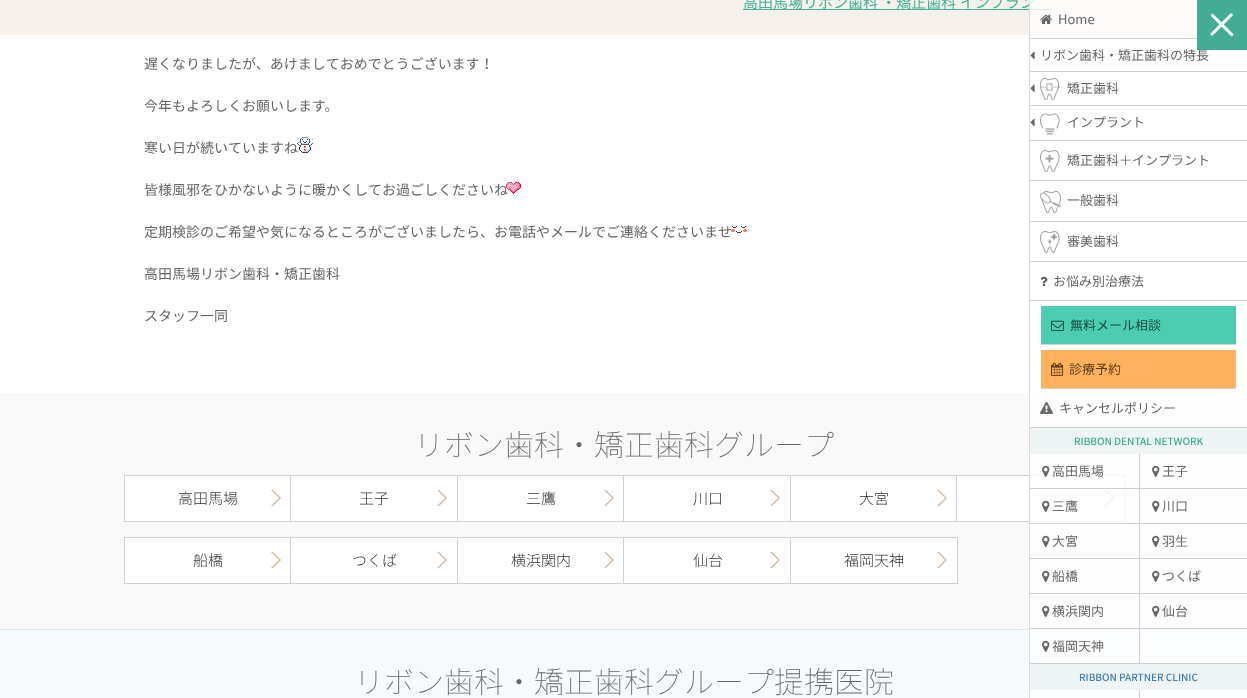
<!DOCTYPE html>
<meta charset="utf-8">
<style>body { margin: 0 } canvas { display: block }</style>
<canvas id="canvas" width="1247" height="698"></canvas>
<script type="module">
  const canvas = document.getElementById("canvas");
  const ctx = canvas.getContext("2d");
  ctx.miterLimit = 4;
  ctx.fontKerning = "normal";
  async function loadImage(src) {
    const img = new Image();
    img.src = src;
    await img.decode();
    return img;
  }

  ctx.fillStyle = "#ffffff";
  ctx.fillRect(0, 0, 1247, 698);
  ctx.fillStyle = "#f6f1ec";
  ctx.fillRect(0, 0, 1197, 35);
  ctx.fillStyle = "#41b294";
  ctx.fillRect(743, 9, 306, 1);
  ctx.font = "15px Noto Sans JP";
  ctx.fillText("高田馬場リボン歯科 ・矯正歯科 インプラン", 743, 8);
  ctx.font = "14px Noto Sans JP";
  ctx.fillStyle = "#666666";
  ctx.fillText("遅くなりましたが、あけましておめでとうございます！", 144, 69);
  ctx.fillText("今年もよろしくお願いします。", 144, 111);
  ctx.fillText("寒い日が続いていますね", 144, 153);
  ctx.drawImage(await loadImage("img1.png"), 297, 137, 16, 16);
  ctx.fillText("皆様風邪をひかないように暖かくしてお過ごしくださいね", 144, 195);
  ctx.drawImage(await loadImage("img2.png"), 506, 182, 15, 12);
  ctx.fillText("定期検診のご希望や気になるところがございましたら、お電話やメールでご連絡くださいませ", 144, 237);
  ctx.drawImage(await loadImage("img3.png"), 731, 226, 16, 7);
  ctx.fillText("高田馬場リボン歯科・矯正歯科", 144, 279);
  ctx.fillText("スタッフ一同", 144, 321);
  ctx.fillStyle = "#f9f9f9";
  ctx.fillRect(0, 393, 1247, 236);
  ctx.font = "100 30px Noto Sans JP";
  ctx.fillStyle = "#666666";
  ctx.fillText("リボン歯科・矯正歯科グループ", 414, 456);
  ctx.fillStyle = "#ffffff";
  ctx.fillRect(125, 476, 165, 45);
  ctx.drawImage(await loadImage("img4.png"), 271, 490, 10, 16);
  ctx.strokeStyle = "#d2d2d2";
  ctx.strokeRect(124.5, 475.5, 167, 46);
  ctx.font = "300 15px Noto Sans JP";
  ctx.fillStyle = "#333333";
  ctx.fillText("高田馬場", 178, 504);
  ctx.fillStyle = "#ffffff";
  ctx.fillRect(291, 476, 166, 45);
  ctx.drawImage(await loadImage("img5.png"), 437, 490, 10, 16);
  ctx.strokeRect(290.5, 475.5, 168, 46);
  ctx.fillStyle = "#333333";
  ctx.fillText("王子", 359, 504);
  ctx.fillStyle = "#ffffff";
  ctx.fillRect(458, 476, 165, 45);
  ctx.drawImage(await loadImage("img4.png"), 604, 490, 10, 16);
  ctx.strokeRect(457.5, 475.5, 167, 46);
  ctx.fillStyle = "#333333";
  ctx.fillText("三鷹", 526, 504);
  ctx.fillStyle = "#ffffff";
  ctx.fillRect(624, 476, 166, 45);
  ctx.drawImage(await loadImage("img5.png"), 770, 490, 10, 16);
  ctx.strokeRect(623.5, 475.5, 168, 46);
  ctx.fillStyle = "#333333";
  ctx.fillText("川口", 693, 504);
  ctx.fillStyle = "#ffffff";
  ctx.fillRect(791, 476, 165, 45);
  ctx.drawImage(await loadImage("img4.png"), 937, 490, 10, 16);
  ctx.strokeRect(790.5, 475.5, 167, 46);
  ctx.fillStyle = "#333333";
  ctx.fillText("大宮", 859, 504);
  ctx.fillStyle = "#ffffff";
  ctx.fillRect(957, 476, 167, 45);
  ctx.drawImage(await loadImage("img4.png"), 1104, 490, 10, 16);
  ctx.strokeRect(956.5, 475.5, 168, 46);
  ctx.fillRect(125, 538, 165, 45);
  ctx.drawImage(await loadImage("img4.png"), 271, 552, 10, 16);
  ctx.strokeRect(124.5, 537.5, 167, 46);
  ctx.fillStyle = "#333333";
  ctx.fillText("船橋", 193, 566);
  ctx.fillStyle = "#ffffff";
  ctx.fillRect(291, 538, 166, 45);
  ctx.drawImage(await loadImage("img5.png"), 437, 552, 10, 16);
  ctx.strokeRect(290.5, 537.5, 168, 46);
  ctx.fillStyle = "#333333";
  ctx.fillText("つくば", 352, 566);
  ctx.fillStyle = "#ffffff";
  ctx.fillRect(458, 538, 165, 45);
  ctx.drawImage(await loadImage("img4.png"), 604, 552, 10, 16);
  ctx.strokeRect(457.5, 537.5, 167, 46);
  ctx.fillStyle = "#333333";
  ctx.fillText("横浜関内", 511, 566);
  ctx.fillStyle = "#ffffff";
  ctx.fillRect(624, 538, 166, 45);
  ctx.drawImage(await loadImage("img5.png"), 770, 552, 10, 16);
  ctx.strokeRect(623.5, 537.5, 168, 46);
  ctx.fillStyle = "#333333";
  ctx.fillText("仙台", 693, 566);
  ctx.fillStyle = "#ffffff";
  ctx.fillRect(791, 538, 166, 45);
  ctx.drawImage(await loadImage("img4.png"), 937, 552, 10, 16);
  ctx.strokeRect(790.5, 537.5, 167, 46);
  ctx.fillStyle = "#333333";
  ctx.fillText("福岡天神", 844, 566);
  ctx.fillStyle = "#f6fafd";
  ctx.fillRect(0, 630, 1247, 68);
  ctx.fillStyle = "#deeaf2";
  ctx.fillRect(0, 629, 1247, 1);
  ctx.font = "100 30px Noto Sans JP";
  ctx.fillStyle = "#666666";
  ctx.fillText("リボン歯科・矯正歯科グループ提携医院", 354, 693);
  ctx.fillStyle = "rgba(255, 255, 255, 0.8)";
  ctx.fillRect(1030, 0, 217, 698);
  ctx.fillStyle = "#dddddd";
  ctx.fillRect(1029, 0, 1, 698);
  ctx.fillStyle = "#d2d2d2";
  ctx.fillRect(1030, 38, 167, 1);
  ctx.drawImage(await loadImage("img6.png"), 1040, 14, 12, 10);
  ctx.font = "13px Noto Sans JP";
  ctx.fillStyle = "#666666";
  ctx.fillText("Home", 1058, 24);
  ctx.fillStyle = "#d2d2d2";
  ctx.fillRect(1030, 71, 217, 1);
  ctx.drawImage(await loadImage("img7.png"), 1030, 51, 5, 8);
  ctx.fillStyle = "#666666";
  ctx.fillText("リボン歯科・矯正歯科の特長", 1040, 60);
  ctx.fillStyle = "#d2d2d2";
  ctx.fillRect(1030, 105, 217, 1);
  ctx.drawImage(await loadImage("img7.png"), 1030, 84, 5, 8);
  ctx.drawImage(await loadImage("img8.png"), 1040, 78, 21, 22);
  ctx.fillStyle = "#666666";
  ctx.fillText("矯正歯科", 1067, 93);
  ctx.fillStyle = "#d2d2d2";
  ctx.fillRect(1030, 140, 217, 1);
  ctx.drawImage(await loadImage("img7.png"), 1030, 118, 5, 8);
  ctx.drawImage(await loadImage("img9.png"), 1040, 113, 20, 22);
  ctx.fillStyle = "#666666";
  ctx.fillText("インプラント", 1067, 127);
  ctx.fillStyle = "#d2d2d2";
  ctx.fillRect(1030, 180, 217, 1);
  ctx.drawImage(await loadImage("img10.png"), 1040, 150, 20, 22);
  ctx.fillStyle = "#666666";
  ctx.fillText("矯正歯科＋インプラント", 1067, 165);
  ctx.fillStyle = "#d2d2d2";
  ctx.fillRect(1030, 221, 217, 1);
  ctx.drawImage(await loadImage("img11.png"), 1040, 191, 21, 22);
  ctx.fillStyle = "#666666";
  ctx.fillText("一般歯科", 1067, 205);
  ctx.fillStyle = "#d2d2d2";
  ctx.fillRect(1030, 261, 217, 1);
  ctx.drawImage(await loadImage("img12.png"), 1040, 231, 20, 22);
  ctx.fillStyle = "#666666";
  ctx.fillText("審美歯科", 1067, 246);
  ctx.fillStyle = "#d2d2d2";
  ctx.fillRect(1030, 300, 217, 1);
  ctx.drawImage(await loadImage("img13.png"), 1040, 276, 8, 10);
  ctx.fillStyle = "#666666";
  ctx.fillText("お悩み別治療法", 1053, 286);
  ctx.fillStyle = "#4ccdb1";
  ctx.fillRect(1041, 306, 195, 38);
  ctx.fillStyle = "#d2d2d2";
  ctx.fillRect(1041, 344, 195, 1);
  ctx.drawImage(await loadImage("img14.png"), 1051, 320, 13, 11);
  ctx.fillStyle = "#1a4b40";
  ctx.fillText("無料メール相談", 1070, 330);
  ctx.fillStyle = "#ffb15e";
  ctx.fillRect(1041, 350, 195, 38);
  ctx.fillStyle = "#d2d2d2";
  ctx.fillRect(1041, 388, 195, 1);
  ctx.drawImage(await loadImage("img15.png"), 1051, 362, 13, 14);
  ctx.fillStyle = "#5c3b18";
  ctx.fillText("診療予約", 1069, 374);
  ctx.fillStyle = "#d2d2d2";
  ctx.fillRect(1030, 427, 217, 1);
  ctx.drawImage(await loadImage("img16.png"), 1040, 401, 13, 13);
  ctx.fillStyle = "#666666";
  ctx.fillText("キャンセルポリシー", 1059, 413);
  ctx.fillStyle = "#eff5f4";
  ctx.fillRect(1030, 428, 217, 26);
  ctx.font = "500 10px Noto Sans JP";
  ctx.fillStyle = "#43ac95";
  ctx.fillText("RIBBON DENTAL NETWORK", 1074, 445);
  ctx.fillStyle = "#cfcfcf";
  ctx.fillRect(1030, 488, 217, 1);
  ctx.drawImage(await loadImage("img17.png"), 1042, 465, 8, 12);
  ctx.font = "13px Noto Sans JP";
  ctx.fillStyle = "#666666";
  ctx.fillText("高田馬場", 1052, 476);
  ctx.fillStyle = "#cfcfcf";
  ctx.fillRect(1139, 454, 1, 35);
  ctx.drawImage(await loadImage("img18.png"), 1152, 465, 8, 12);
  ctx.fillStyle = "#666666";
  ctx.fillText("王子", 1162, 476);
  ctx.fillStyle = "#cfcfcf";
  ctx.fillRect(1030, 523, 217, 1);
  ctx.drawImage(await loadImage("img19.png"), 1042, 500, 8, 12);
  ctx.fillStyle = "#666666";
  ctx.fillText("三鷹", 1052, 511);
  ctx.fillStyle = "#cfcfcf";
  ctx.fillRect(1139, 489, 1, 35);
  ctx.drawImage(await loadImage("img18.png"), 1152, 500, 8, 12);
  ctx.fillStyle = "#666666";
  ctx.fillText("川口", 1162, 511);
  ctx.fillStyle = "#cfcfcf";
  ctx.fillRect(1030, 558, 217, 1);
  ctx.drawImage(await loadImage("img18.png"), 1042, 535, 8, 12);
  ctx.fillStyle = "#666666";
  ctx.fillText("大宮", 1052, 546);
  ctx.fillStyle = "#cfcfcf";
  ctx.fillRect(1139, 524, 1, 35);
  ctx.drawImage(await loadImage("img18.png"), 1152, 535, 8, 12);
  ctx.fillStyle = "#666666";
  ctx.fillText("羽生", 1162, 546);
  ctx.fillStyle = "#cfcfcf";
  ctx.fillRect(1030, 593, 217, 1);
  ctx.drawImage(await loadImage("img18.png"), 1042, 570, 8, 12);
  ctx.fillStyle = "#666666";
  ctx.fillText("船橋", 1052, 581);
  ctx.fillStyle = "#cfcfcf";
  ctx.fillRect(1139, 559, 1, 35);
  ctx.drawImage(await loadImage("img18.png"), 1152, 570, 8, 12);
  ctx.fillStyle = "#666666";
  ctx.fillText("つくば", 1162, 581);
  ctx.fillStyle = "#cfcfcf";
  ctx.fillRect(1030, 628, 217, 1);
  ctx.drawImage(await loadImage("img18.png"), 1042, 605, 8, 12);
  ctx.fillStyle = "#666666";
  ctx.fillText("横浜関内", 1052, 616);
  ctx.fillStyle = "#cfcfcf";
  ctx.fillRect(1139, 594, 1, 35);
  ctx.drawImage(await loadImage("img18.png"), 1152, 605, 8, 12);
  ctx.fillStyle = "#666666";
  ctx.fillText("仙台", 1162, 616);
  ctx.fillStyle = "#cfcfcf";
  ctx.fillRect(1030, 663, 217, 1);
  ctx.drawImage(await loadImage("img20.png"), 1042, 640, 8, 12);
  ctx.fillStyle = "#666666";
  ctx.fillText("福岡天神", 1052, 651);
  ctx.fillStyle = "#cfcfcf";
  ctx.fillRect(1139, 629, 1, 35);
  ctx.fillStyle = "#eff5f4";
  ctx.fillRect(1030, 664, 217, 26);
  ctx.font = "500 10px Noto Sans JP";
  ctx.fillStyle = "#427eab";
  ctx.fillText("RIBBON PARTNER CLINIC", 1079, 681);
  ctx.fillStyle = "#cfcfcf";
  ctx.fillRect(1139, 690, 1, 8);
  ctx.drawImage(await loadImage("img21.png"), 1197, 0, 50, 50);
</script>
